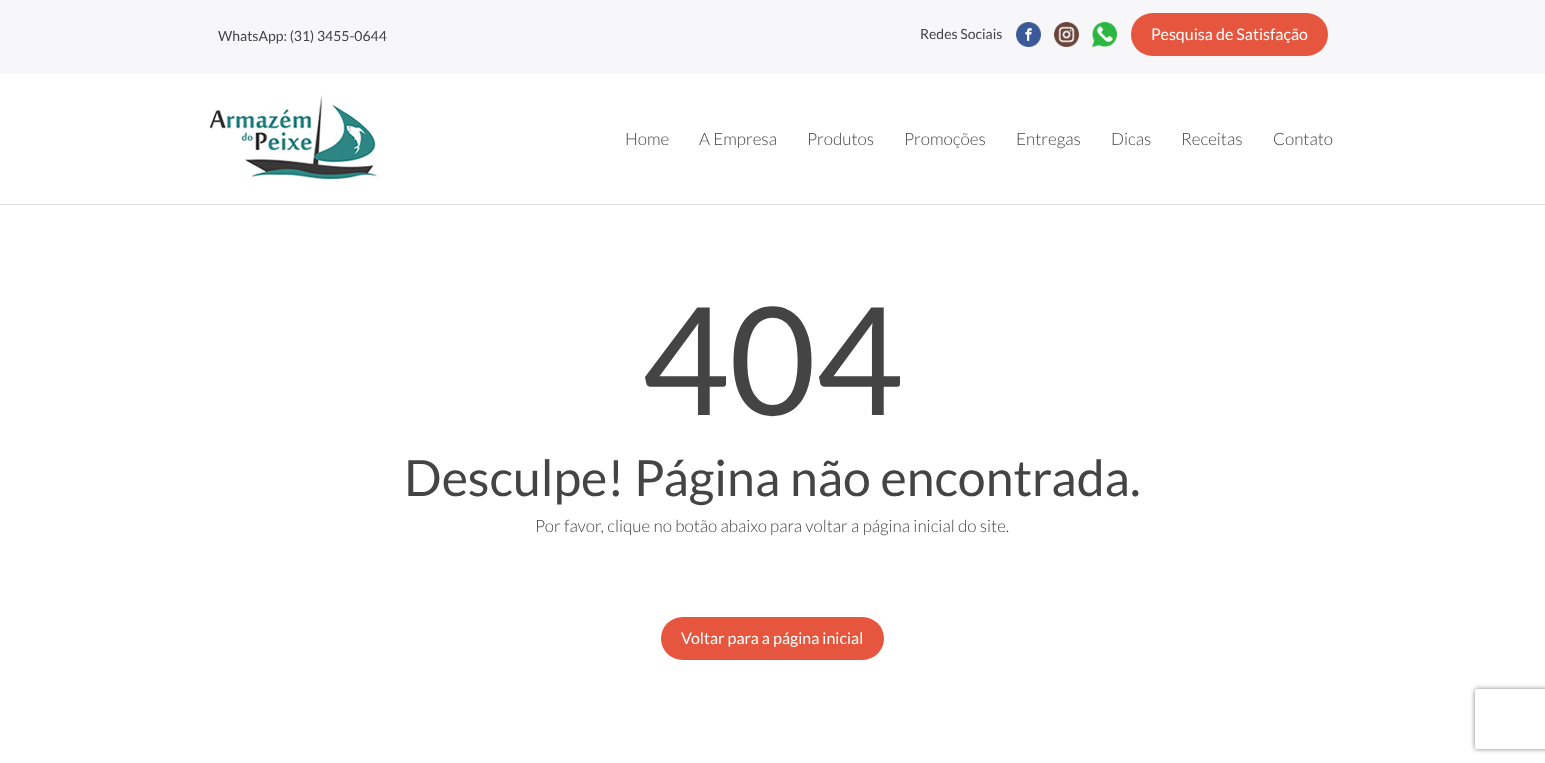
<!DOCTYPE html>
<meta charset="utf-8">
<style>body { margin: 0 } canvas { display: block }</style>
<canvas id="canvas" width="1545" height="763"></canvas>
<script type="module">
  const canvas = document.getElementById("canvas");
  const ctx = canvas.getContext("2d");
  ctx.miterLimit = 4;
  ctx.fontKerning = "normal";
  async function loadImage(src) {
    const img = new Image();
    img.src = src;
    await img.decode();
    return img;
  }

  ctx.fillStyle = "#ffffff";
  ctx.fillRect(0, 0, 1545, 763);
  ctx.fillStyle = "#f7f7f9";
  ctx.fillRect(0, 0, 1545, 74);
  ctx.font = "14px Lato";
  ctx.fillStyle = "#444444";
  ctx.fillText("WhatsApp: (31) 3455-0644", 218, 41);
  ctx.fillText("Redes Sociais", 920, 39);
  ctx.drawImage(await loadImage("img1.png"), 1016, 22, 25, 25);
  ctx.drawImage(await loadImage("img2.png"), 1054, 22, 25, 25);
  ctx.drawImage(await loadImage("img3.png"), 1092, 22, 25, 25);
  ctx.fillStyle = "#e6553e";
  ctx.beginPath();
  ctx.roundRect(1131, 13, 197, 43, 21.5);
  ctx.fill();
  ctx.font = "16px Lato";
  ctx.fillStyle = "#ffffff";
  ctx.fillText("Pesquisa de Satisfação", 1151, 40);
  ctx.fillStyle = "#dedede";
  ctx.fillRect(0, 204, 1545, 1);
  ctx.drawImage(await loadImage("img4.png"), 209, 95, 168, 85);
  ctx.font = "300 17px Lato";
  ctx.fillStyle = "#444444";
  ctx.fillText("Home", 625, 145);
  ctx.fillText("A Empresa", 699, 145);
  ctx.fillText("Produtos", 807, 145);
  ctx.fillText("Promoções", 904, 145);
  ctx.fillText("Entregas", 1016, 145);
  ctx.fillText("Dicas", 1111, 145);
  ctx.fillText("Receitas", 1181, 145);
  ctx.fillText("Contato", 1273, 145);
  ctx.font = "150px Lato";
  ctx.fillText("404", 642, 415);
  ctx.font = "50px Lato";
  ctx.fillText("Desculpe! Página não encontrada.", 404, 496);
  ctx.font = "300 17px Lato";
  ctx.fillText("Por favor, clique no botão abaixo para voltar a página inicial do site.", 535, 532);
  ctx.fillStyle = "#e6553e";
  ctx.beginPath();
  ctx.roundRect(661, 617, 223, 43, 21.5);
  ctx.fill();
  ctx.font = "16px Lato";
  ctx.fillStyle = "#ffffff";
  ctx.fillText("Voltar para a página inicial", 681, 644);
  ctx.save();
  ctx.beginPath();
  ctx.moveTo(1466, 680);
  ctx.lineTo(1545, 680);
  ctx.lineTo(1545, 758);
  ctx.lineTo(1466, 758);
  ctx.closePath();
  ctx.moveTo(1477, 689);
  ctx.lineTo(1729, 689);
  ctx.bezierCurveTo(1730, 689, 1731, 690, 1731, 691);
  ctx.lineTo(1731, 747);
  ctx.bezierCurveTo(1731, 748, 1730, 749, 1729, 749);
  ctx.lineTo(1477, 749);
  ctx.bezierCurveTo(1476, 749, 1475, 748, 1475, 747);
  ctx.lineTo(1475, 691);
  ctx.bezierCurveTo(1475, 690, 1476, 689, 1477, 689);
  ctx.closePath();
  ctx.clip("evenodd");
  ctx.fillStyle = "#808080";
  ctx.filter = "blur(2.5px)";
  ctx.beginPath();
  ctx.roundRect(1475, 689, 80, 60, 2);
  ctx.fill();
  ctx.filter = "none";
  ctx.restore();
</script>
